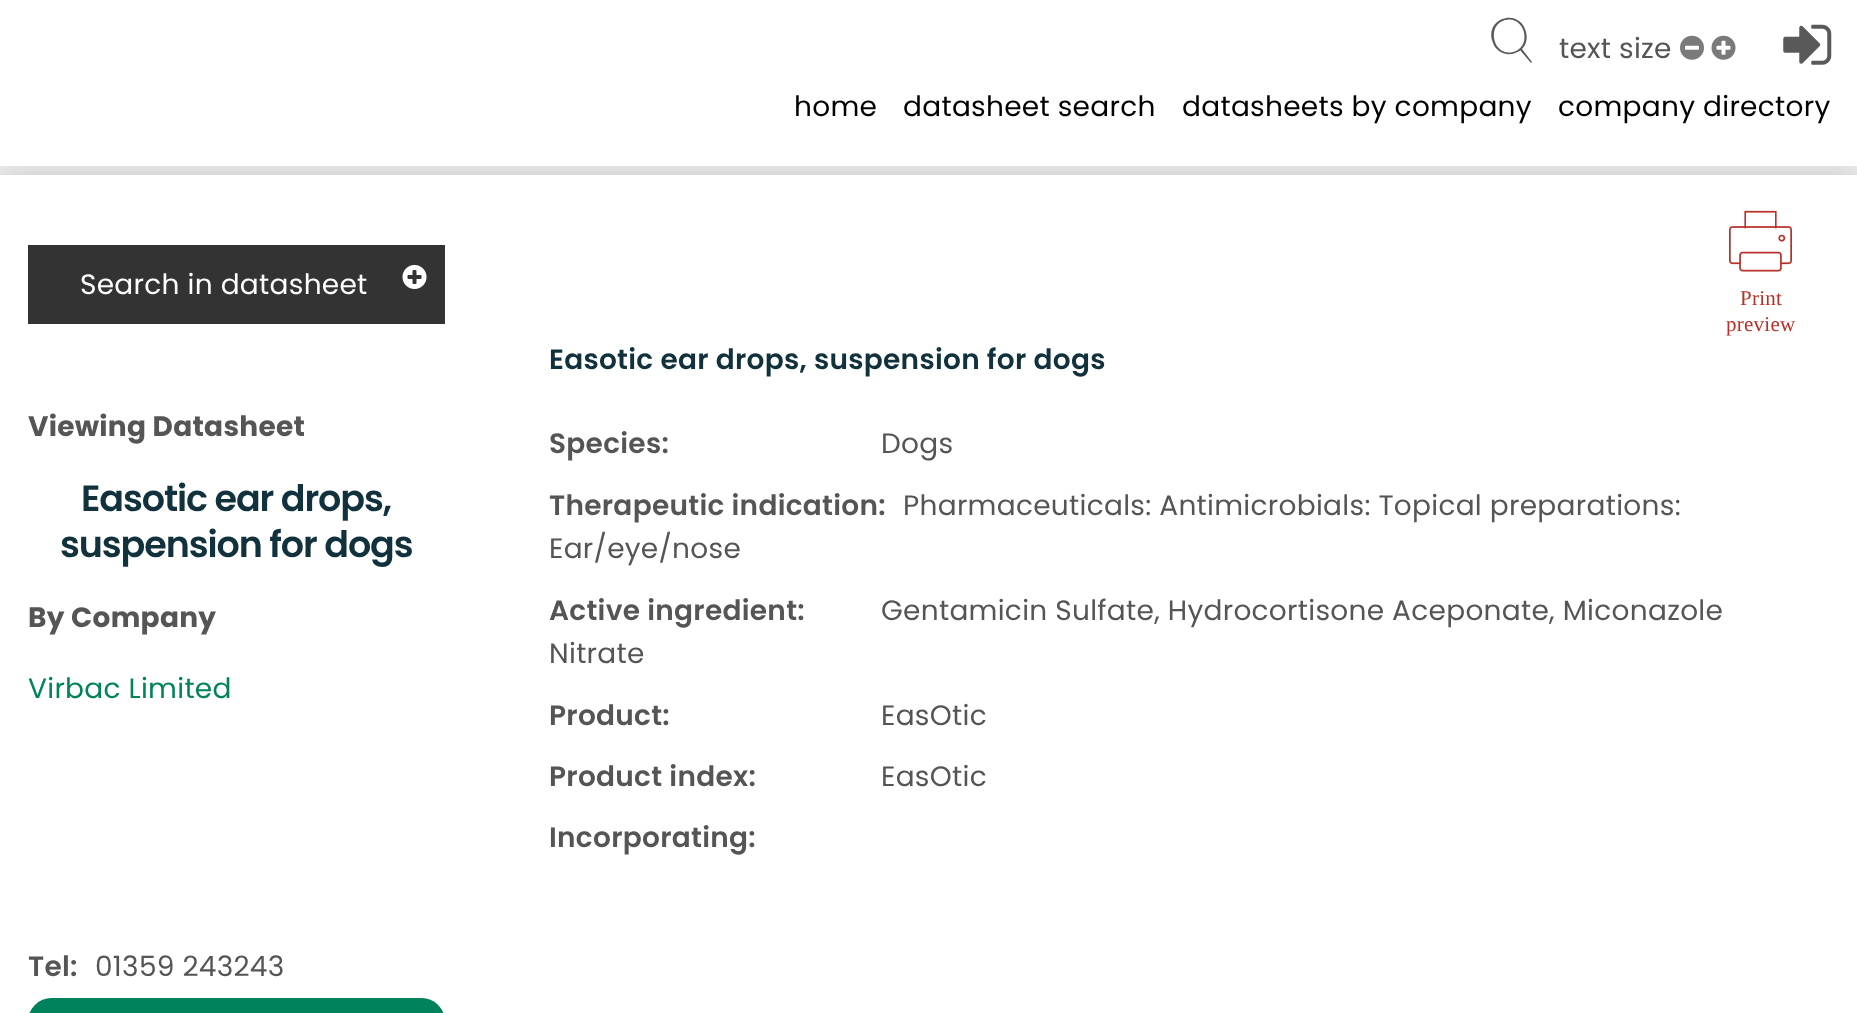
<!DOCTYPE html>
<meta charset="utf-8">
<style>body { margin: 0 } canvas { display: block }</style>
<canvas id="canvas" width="1857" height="1013"></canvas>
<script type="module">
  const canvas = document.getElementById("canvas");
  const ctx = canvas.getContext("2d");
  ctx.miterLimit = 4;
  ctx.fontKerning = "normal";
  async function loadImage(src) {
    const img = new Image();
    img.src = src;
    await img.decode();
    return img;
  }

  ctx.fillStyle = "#f0f0f0";
  ctx.fillRect(0, 0, 1857, 1013);
  ctx.fillStyle = "rgba(0, 0, 0, 0.2)";
  ctx.filter = "blur(17.5px)";
  ctx.beginPath();
  ctx.rect(0, 175, 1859, 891);
  ctx.fill();
  ctx.filter = "none";
  ctx.fillStyle = "#ffffff";
  ctx.fillRect(0, 0, 1857, 166);
  ctx.fillStyle = "#595959";
  ctx.beginPath();
  ctx.moveTo(1505, 20);
  ctx.bezierCurveTo(1486, 25, 1493, 57, 1513, 52);
  ctx.bezierCurveTo(1533, 47, 1525, 15, 1505, 20);
  ctx.closePath();
  ctx.moveTo(1492, 40);
  ctx.bezierCurveTo(1486, 17, 1520, 8, 1526, 32);
  ctx.bezierCurveTo(1532, 55, 1498, 64, 1492, 40);
  ctx.closePath();
  ctx.moveTo(1520, 50);
  ctx.lineTo(1522, 49);
  ctx.lineTo(1532, 62);
  ctx.lineTo(1531, 63);
  ctx.closePath();
  ctx.fill();
  ctx.letterSpacing = "0.28px";
  ctx.font = "28px Poppins";
  ctx.fillStyle = "#555555";
  ctx.fillText("text size", 1559, 58);
  ctx.drawImage(await loadImage("img1.png"), 1680, 35, 24, 25);
  ctx.drawImage(await loadImage("img2.png"), 1711, 35, 25, 25);
  ctx.drawImage(await loadImage("img3.png"), 1783, 24, 49, 41);
  ctx.fillStyle = "#000000";
  ctx.fillText("home", 794, 116);
  ctx.fillText("datasheet search", 903, 116);
  ctx.fillText("datasheets by company", 1182, 116);
  ctx.fillText("company directory", 1558, 116);
  ctx.fillStyle = "#ffffff";
  ctx.fillRect(0, 175, 1857, 838);
  ctx.fillStyle = "#333333";
  ctx.fillRect(28, 245, 417, 79);
  ctx.fillStyle = "#ffffff";
  ctx.fillText("Search in datasheet", 80, 294);
  ctx.drawImage(await loadImage("img4.png"), 402, 265, 25, 24);
  ctx.font = "bold 28px Poppins";
  ctx.fillStyle = "#555555";
  ctx.fillText("Viewing Datasheet", 28, 436);
  ctx.letterSpacing = "-1.1px";
  ctx.font = "600 36.5px Poppins";
  ctx.fillStyle = "#11323c";
  ctx.fillText("Easotic ear drops,", 81, 511);
  ctx.fillText("suspension for dogs", 60, 557);
  ctx.letterSpacing = "0.28px";
  ctx.font = "bold 28px Poppins";
  ctx.fillStyle = "#555555";
  ctx.fillText("By Company", 28, 627);
  ctx.font = "28px Poppins";
  ctx.fillStyle = "#008457";
  ctx.fillText("Virbac Limited", 28, 698);
  ctx.font = "600 28px Poppins";
  ctx.fillStyle = "#555555";
  ctx.fillText("Tel:", 28, 976);
  ctx.font = "28px Poppins";
  ctx.fillText("01359 243243", 95, 976);
  ctx.fillStyle = "#00825d";
  ctx.beginPath();
  ctx.roundRect(28, 998, 417, 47, 31.5);
  ctx.fill();
  ctx.drawImage(await loadImage("img5.png"), 1729, 210, 63, 62);
  ctx.letterSpacing = "0.25px";
  ctx.font = "21px Liberation Serif";
  ctx.fillStyle = "#b63128";
  ctx.fillText("Print", 1740, 305);
  ctx.fillText("preview", 1726, 331);
  ctx.letterSpacing = "0.28px";
  ctx.font = "600 28px Poppins";
  ctx.fillStyle = "#11323c";
  ctx.fillText("Easotic ear drops, suspension for dogs", 549, 369);
  ctx.fillStyle = "#555555";
  ctx.fillText("Species:", 549, 453);
  ctx.font = "28px Poppins";
  ctx.fillText("Dogs", 881, 453);
  ctx.font = "600 28px Poppins";
  ctx.fillText("Therapeutic indication:", 549, 515);
  ctx.font = "28px Poppins";
  ctx.fillText("Pharmaceuticals: Antimicrobials: Topical preparations:", 903, 515);
  ctx.fillText("Ear/eye/nose", 549, 558);
  ctx.font = "600 28px Poppins";
  ctx.fillText("Active ingredient:", 549, 620);
  ctx.font = "28px Poppins";
  ctx.fillText("Gentamicin Sulfate, Hydrocortisone Aceponate, Miconazole", 881, 620);
  ctx.fillText("Nitrate", 549, 663);
  ctx.font = "600 28px Poppins";
  ctx.fillText("Product:", 549, 725);
  ctx.font = "28px Poppins";
  ctx.fillText("EasOtic", 881, 725);
  ctx.font = "600 28px Poppins";
  ctx.fillText("Product index:", 549, 786);
  ctx.font = "28px Poppins";
  ctx.fillText("EasOtic", 881, 786);
  ctx.font = "600 28px Poppins";
  ctx.fillText("Incorporating:", 549, 847);
</script>
